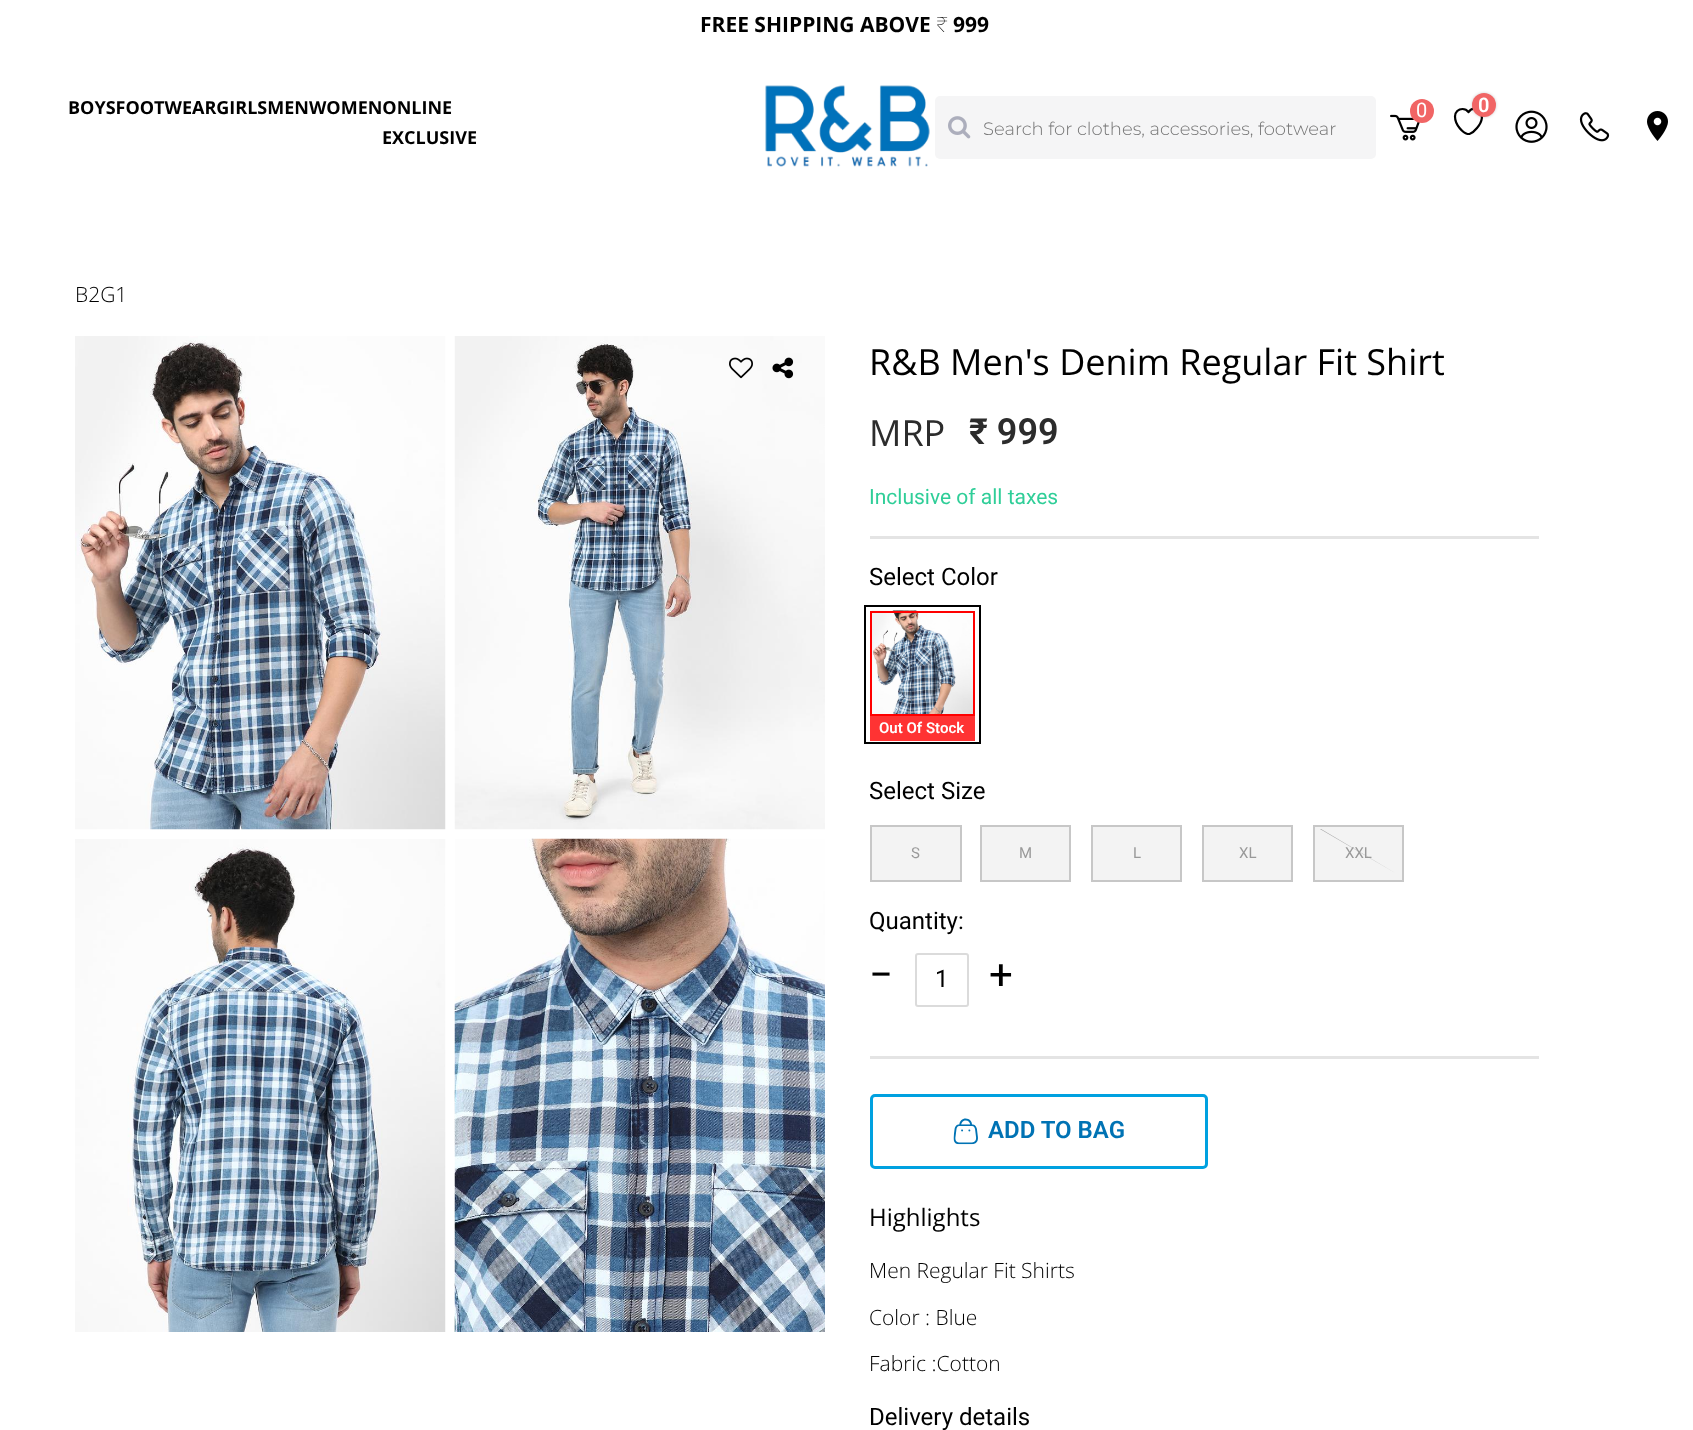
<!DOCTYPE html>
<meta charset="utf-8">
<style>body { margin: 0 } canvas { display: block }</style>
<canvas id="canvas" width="1693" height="1430"></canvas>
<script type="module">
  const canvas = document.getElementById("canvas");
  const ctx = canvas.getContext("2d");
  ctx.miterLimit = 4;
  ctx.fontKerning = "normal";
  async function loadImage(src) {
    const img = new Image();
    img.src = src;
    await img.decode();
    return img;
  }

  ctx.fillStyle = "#ffffff";
  ctx.fillRect(0, 0, 1693, 1430);
  ctx.font = "bold 21px Open Sans";
  ctx.fillStyle = "#000000";
  ctx.fillText("FREE SHIPPING ABOVE", 700, 32);
  ctx.font = "100 21px Noto Sans";
  ctx.fillText("₹", 936, 32);
  ctx.font = "bold 21px Open Sans";
  ctx.fillText("999", 953, 32);
  ctx.font = "bold 18px Open Sans";
  ctx.fillText("BOYSFOOTWEARGIRLSMENWOMENONLINE", 68, 114);
  ctx.fillText("EXCLUSIVE", 382, 144);
  ctx.drawImage(await loadImage("img1.png"), 765, 85, 165, 82);
  ctx.fillStyle = "#f5f5f6";
  ctx.beginPath();
  ctx.roundRect(935, 96, 441, 63, 5);
  ctx.fill();
  ctx.drawImage(await loadImage("img2.png"), 948, 116, 23, 23);
  ctx.font = "300 18px Montserrat";
  ctx.fillStyle = "#757575";
  ctx.fillText("Search for clothes, accessories, footwear", 983, 135);
  ctx.drawImage(await loadImage("img3.png"), 1390, 114, 30, 27);
  ctx.fillStyle = "#f16565";
  ctx.beginPath();
  ctx.arc(1422, 111, 12, 0, Math.PI * 2);
  ctx.fill();
  ctx.font = "20px Roboto";
  ctx.fillStyle = "#ffffff";
  ctx.fillText("0", 1416, 117);
  ctx.beginPath();
  ctx.moveTo(1469.5, 134);
  ctx.lineTo(1467.5, 134);
  ctx.bezierCurveTo(1463.5, 133, 1455, 125.5, 1455, 116.5);
  ctx.bezierCurveTo(1455, 112, 1458.5, 109, 1462.5, 109);
  ctx.bezierCurveTo(1465, 109, 1467, 110, 1468.5, 112);
  ctx.bezierCurveTo(1475, 103, 1489.5, 113.5, 1477, 128);
  ctx.bezierCurveTo(1475, 130.5, 1472.5, 133, 1469.5, 134);
  ctx.closePath();
  ctx.strokeStyle = "#000000";
  ctx.lineWidth = 2.2;
  ctx.lineCap = "round";
  ctx.lineJoin = "round";
  ctx.stroke();
  ctx.fillStyle = "rgba(0, 0, 0, 0.2)";
  ctx.filter = "blur(1.5px)";
  ctx.beginPath();
  ctx.roundRect(1472, 93, 24, 24, 12);
  ctx.fill();
  ctx.filter = "none";
  ctx.fillStyle = "#f16565";
  ctx.beginPath();
  ctx.arc(1484, 105, 12, 0, Math.PI * 2);
  ctx.fill();
  ctx.font = "600 20px Roboto";
  ctx.fillStyle = "#ffffff";
  ctx.fillText("0", 1478, 112);
  ctx.drawImage(await loadImage("img4.png"), 1515, 110, 33, 33);
  ctx.drawImage(await loadImage("img5.png"), 1579, 112, 31, 30);
  ctx.drawImage(await loadImage("img6.png"), 1647, 111, 21, 30);
  ctx.font = "300 21px Open Sans";
  ctx.fillStyle = "#000000";
  ctx.fillText("B2G1", 75, 302);
  ctx.drawImage(await loadImage("img7.png"), 75, 336, 371, 494);
  ctx.drawImage(await loadImage("img8.png"), 454, 336, 371, 494);
  ctx.drawImage(await loadImage("img9.png"), 75, 839, 371, 493);
  ctx.drawImage(await loadImage("img10.png"), 454, 838, 371, 494);
  ctx.drawImage(await loadImage("img11.png"), 729, 357, 24, 22);
  ctx.drawImage(await loadImage("img12.png"), 772, 357, 22, 22);
  ctx.font = "36px Open Sans";
  ctx.fillText("R&B Men's Denim Regular Fit Shirt", 869, 375);
  ctx.fillStyle = "#2c2c2c";
  ctx.fillText("MRP", 869, 446);
  ctx.font = "600 36px Roboto";
  ctx.fillText("₹ 999", 969, 444);
  ctx.font = "21px Roboto";
  ctx.fillStyle = "#2fce98";
  ctx.fillText("Inclusive of all taxes", 869, 504);
  ctx.fillStyle = "#e4e4e4";
  ctx.fillRect(870, 536, 669, 3);
  ctx.font = "24px Roboto";
  ctx.fillStyle = "#000000";
  ctx.fillText("Select Color", 869, 585);
  ctx.drawImage(await loadImage("img13.png"), 871, 610, 103, 104);
  ctx.strokeStyle = "#ff0000";
  ctx.lineWidth = 2;
  ctx.lineJoin = "miter";
  ctx.strokeRect(871, 612, 103, 103);
  ctx.strokeStyle = "#000000";
  ctx.strokeRect(865, 606, 115, 137);
  ctx.fillStyle = "#ff3333";
  ctx.fillRect(870, 716, 105, 25);
  ctx.font = "600 15px Roboto";
  ctx.fillStyle = "#ffffff";
  ctx.fillText("Out Of Stock", 879, 733);
  ctx.font = "24px Roboto";
  ctx.fillStyle = "#000000";
  ctx.fillText("Select Size", 869, 799);
  ctx.fillStyle = "#f3f3f3";
  ctx.beginPath();
  ctx.rect(871, 826, 90, 55);
  ctx.fill();
  ctx.strokeStyle = "#c7c7c7";
  ctx.stroke();
  ctx.font = "15px Roboto";
  ctx.fillStyle = "#999999";
  ctx.fillText("S", 911, 858);
  ctx.fillStyle = "#f3f3f3";
  ctx.beginPath();
  ctx.rect(981, 826, 89, 55);
  ctx.fill();
  ctx.stroke();
  ctx.fillStyle = "#999999";
  ctx.fillText("M", 1019, 858);
  ctx.fillStyle = "#f3f3f3";
  ctx.beginPath();
  ctx.rect(1092, 826, 89, 55);
  ctx.fill();
  ctx.stroke();
  ctx.fillStyle = "#999999";
  ctx.fillText("L", 1133, 858);
  ctx.fillStyle = "#f3f3f3";
  ctx.beginPath();
  ctx.rect(1203, 826, 89, 55);
  ctx.fill();
  ctx.stroke();
  ctx.fillStyle = "#999999";
  ctx.fillText("XL", 1239, 858);
  ctx.fillStyle = "#f3f3f3";
  ctx.beginPath();
  ctx.rect(1314, 826, 89, 55);
  ctx.fill();
  ctx.stroke();
  ctx.fillStyle = "#999999";
  ctx.beginPath();
  ctx.moveTo(1321, 829);
  ctx.lineTo(1397, 874);
  ctx.lineTo(1320, 829);
  ctx.closePath();
  ctx.fill();
  ctx.fillText("XXL", 1345, 858);
  ctx.font = "24px Roboto";
  ctx.fillStyle = "#000000";
  ctx.fillText("Quantity:", 869, 929);
  ctx.font = "42px Roboto";
  ctx.fillText("−", 869, 989);
  ctx.beginPath();
  ctx.roundRect(916, 954, 52, 52, 2);
  ctx.strokeStyle = "#dbdbdb";
  ctx.stroke();
  ctx.font = "24px Roboto";
  ctx.fillText("1", 935, 987);
  ctx.font = "42px Roboto";
  ctx.fillText("+", 989, 989);
  ctx.fillStyle = "#e4e4e4";
  ctx.fillRect(870, 1056, 669, 3);
  ctx.beginPath();
  ctx.roundRect(871.5, 1095.5, 335, 72, 3.5);
  ctx.strokeStyle = "#00a1e0";
  ctx.lineWidth = 3;
  ctx.stroke();
  ctx.drawImage(await loadImage("img14.png"), 953, 1118, 25, 27);
  ctx.font = "600 24px Roboto";
  ctx.fillStyle = "#0073b4";
  ctx.fillText("ADD TO BAG", 988, 1138);
  ctx.font = "24px Open Sans";
  ctx.fillStyle = "#000000";
  ctx.fillText("Highlights", 869, 1226);
  ctx.font = "300 21px Open Sans";
  ctx.fillText("Men Regular Fit Shirts", 869, 1278);
  ctx.fillText("Color : Blue", 869, 1325);
  ctx.fillText("Fabric :Cotton", 869, 1371);
  ctx.font = "24px Roboto";
  ctx.fillText("Delivery details", 869, 1425);
</script>
